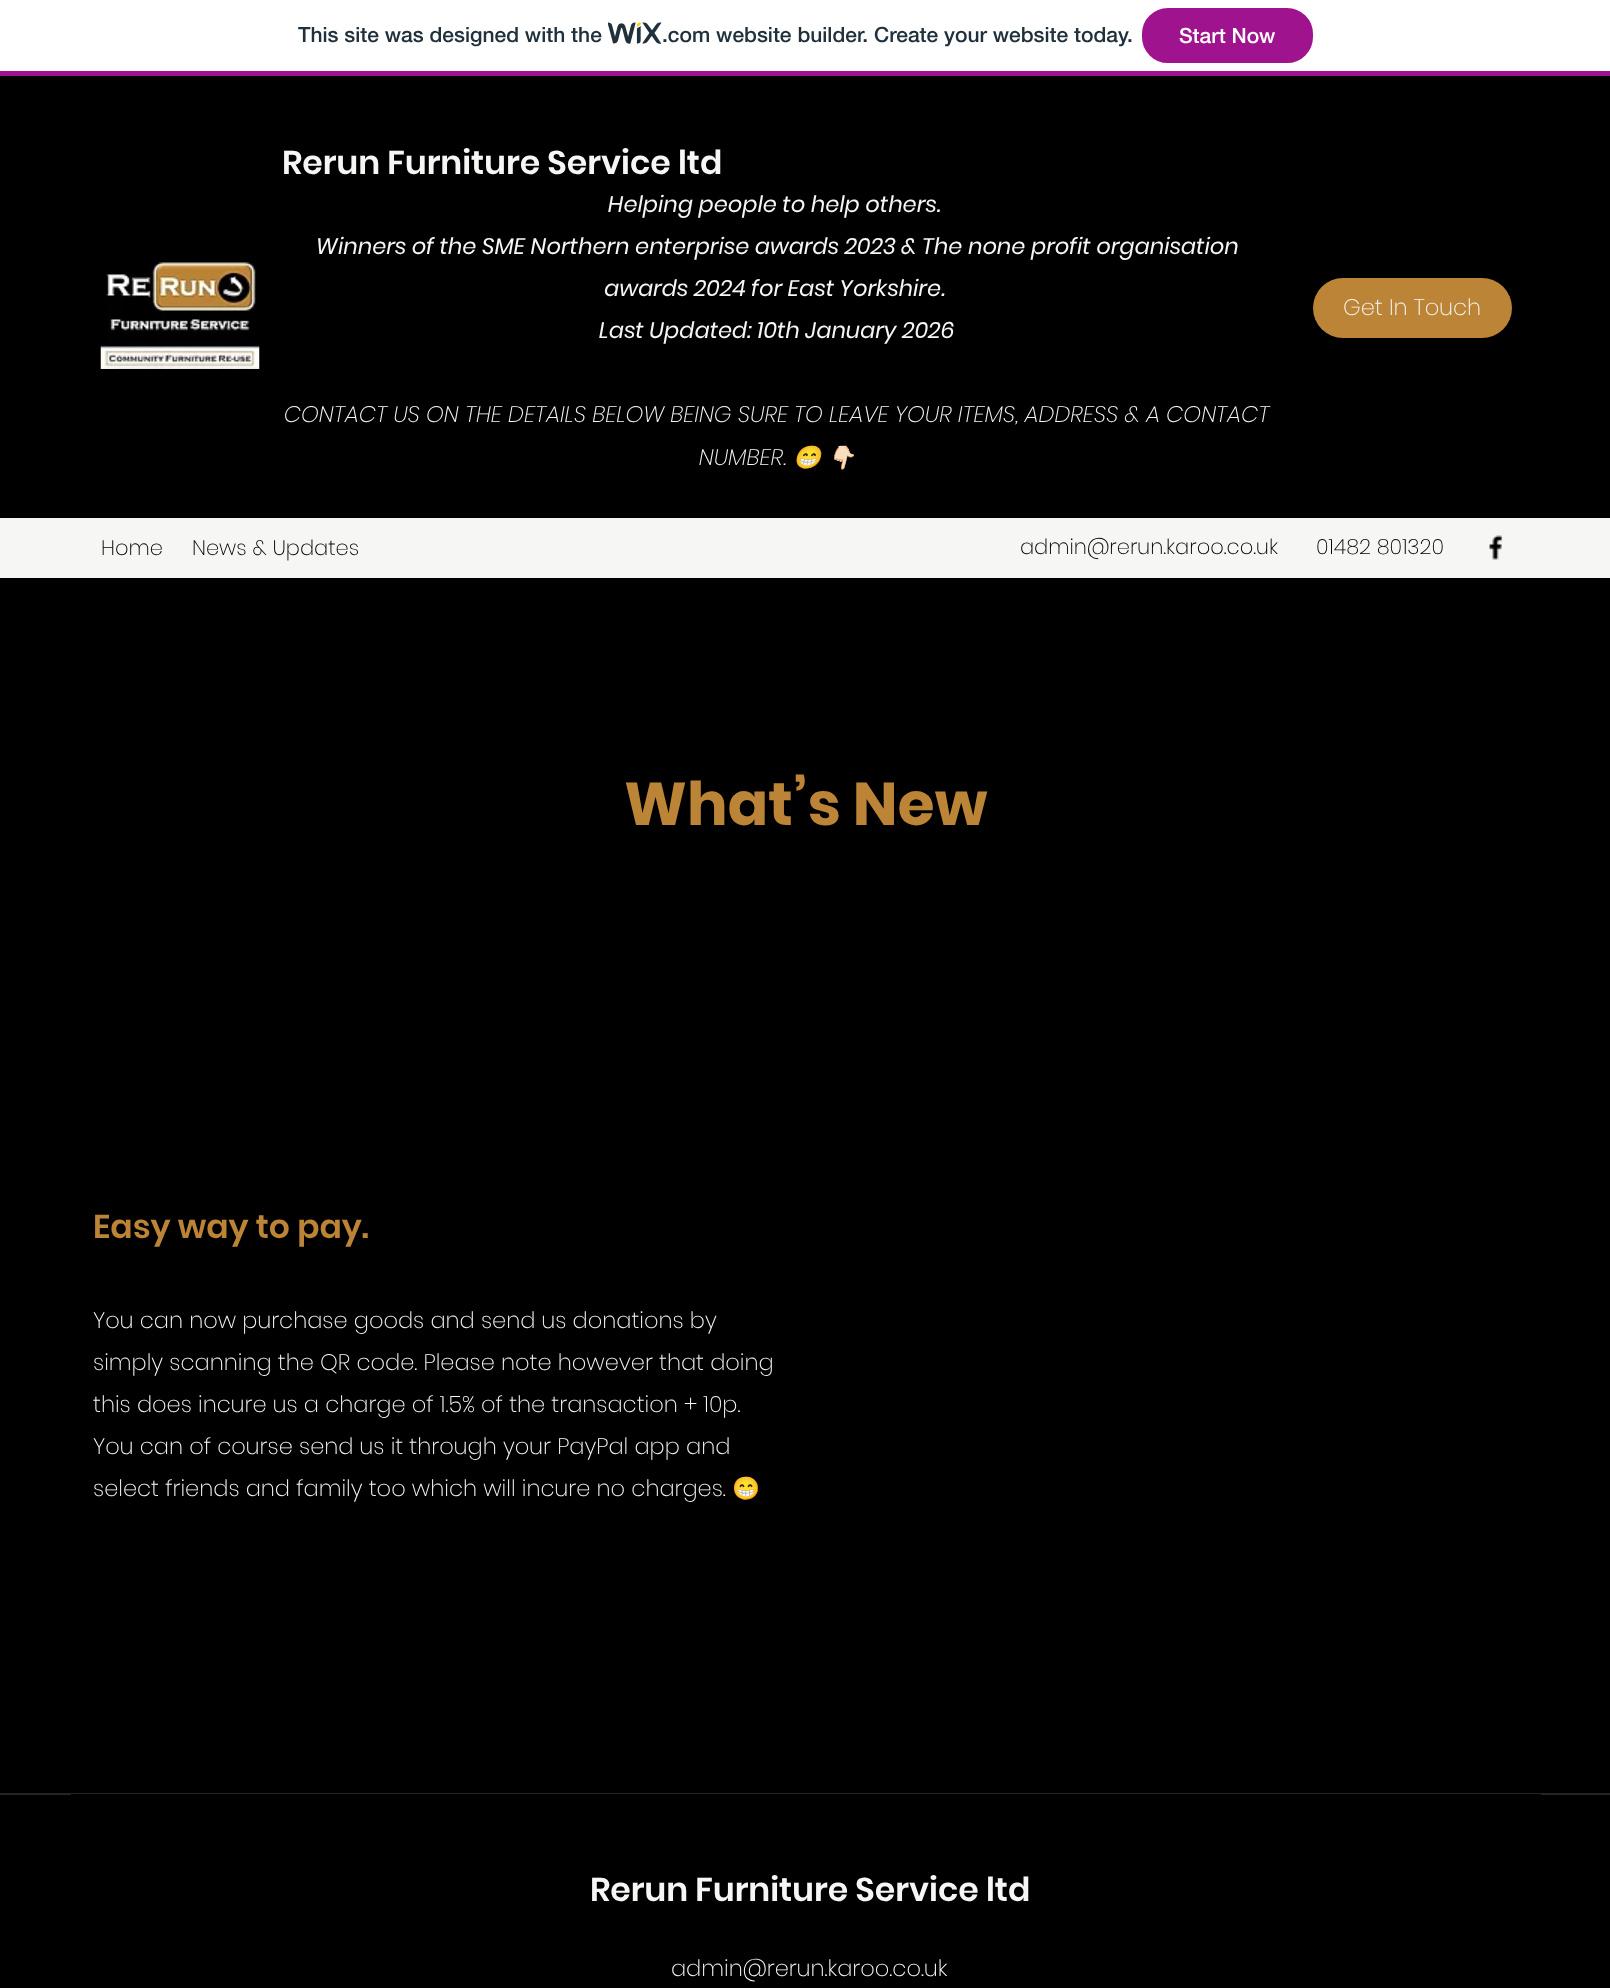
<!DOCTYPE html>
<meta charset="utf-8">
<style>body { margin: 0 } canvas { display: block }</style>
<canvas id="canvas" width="1610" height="1988"></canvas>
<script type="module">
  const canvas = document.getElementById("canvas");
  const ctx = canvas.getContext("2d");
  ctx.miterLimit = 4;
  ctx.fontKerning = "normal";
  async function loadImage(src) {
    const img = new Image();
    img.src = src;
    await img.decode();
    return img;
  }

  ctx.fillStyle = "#ffffff";
  ctx.fillRect(0, 0, 1610, 1988);
  ctx.fillStyle = "#a0138e";
  ctx.fillRect(0, 71, 1610, 5);
  ctx.font = "500 21px 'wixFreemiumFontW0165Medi'";
  ctx.fillStyle = "#20303c";
  ctx.fillText("This site was designed with the", 298, 42);
  ctx.drawImage(await loadImage("img1.png"), 608, 22, 54, 22);
  ctx.fillText(".com website builder. Create your website today.", 662, 42);
  ctx.fillStyle = "#a0138e";
  ctx.beginPath();
  ctx.roundRect(1143, 9, 169, 53, 25);
  ctx.fill();
  ctx.strokeStyle = "#a0138e";
  ctx.lineWidth = 2;
  ctx.stroke();
  ctx.fillStyle = "#ffffff";
  ctx.fillText("Start Now", 1179, 43);
  ctx.fillStyle = "#000000";
  ctx.fillRect(0, 76, 1610, 442);
  ctx.font = "600 33px Poppins";
  ctx.fillStyle = "#f6f6f5";
  ctx.fillText("Rerun Furniture Service ltd", 282, 174);
  ctx.drawImage(await loadImage("img2.png"), 100, 261, 160, 108);
  ctx.font = "italic 22.5px Poppins";
  ctx.fillText("Helping people to help others.", 608, 212);
  ctx.fillText("Winners of the SME Northern enterprise awards 2023 & The none profit organisation", 316, 254);
  ctx.fillText("awards 2024 for East Yorkshire.", 604, 296);
  ctx.fillText("Last Updated: 10th January 2026", 599, 338);
  ctx.font = "italic 200 22.5px Poppins";
  ctx.fillText("CONTACT US ON THE DETAILS BELOW BEING SURE TO LEAVE YOUR ITEMS, ADDRESS & A CONTACT", 284, 422);
  ctx.fillText("NUMBER.", 699, 465);
  ctx.font = "italic 22.5px Noto Color Emoji";
  ctx.fillText("😁", 793, 465);
  ctx.fillText("👇🏻", 827, 465);
  ctx.fillStyle = "#bb8436";
  ctx.beginPath();
  ctx.roundRect(1313, 278, 199, 60, 30);
  ctx.fill();
  ctx.font = "200 22.5px Poppins";
  ctx.fillStyle = "#f6f6f5";
  ctx.fillText("Get In Touch", 1343, 315);
  ctx.fillRect(0, 518, 1610, 60);
  ctx.font = "200 21px Poppins";
  ctx.fillStyle = "#000000";
  ctx.fillText("Home", 101, 555);
  ctx.fillText("News & Updates", 192, 555);
  ctx.fillText("admin@rerun.karoo.co.uk", 1020, 554);
  ctx.fillText("01482 801320", 1316, 554);
  ctx.drawImage(await loadImage("img3.png"), 1489, 535, 14, 25);
  ctx.fillRect(0, 578, 1610, 1215);
  ctx.font = "bold 60px Poppins";
  ctx.fillStyle = "#bb8436";
  ctx.fillText("What’s New", 624, 825);
  ctx.font = "600 33px Poppins";
  ctx.fillText("Easy way to pay.", 93, 1238);
  ctx.font = "200 22.5px Poppins";
  ctx.fillStyle = "#f6f6f5";
  ctx.fillText("You can now purchase goods and send us donations by", 93, 1328);
  ctx.fillText("simply scanning the QR code. Please note however that doing", 93, 1370);
  ctx.fillText("this does incure us a charge of 1.5% of the transaction + 10p.", 93, 1412);
  ctx.fillText("You can of course send us it through your PayPal app and", 93, 1454);
  ctx.fillText("select friends and family too which will incure no charges.", 93, 1496);
  ctx.font = "22.5px Noto Color Emoji";
  ctx.fillText("😁", 732, 1496);
  ctx.fillStyle = "#000000";
  ctx.fillRect(0, 1795, 1610, 193);
  ctx.fillStyle = "#252525";
  ctx.fillRect(0, 1793, 1610, 2);
  ctx.fillStyle = "#000000";
  ctx.fillRect(71, 1794, 1470, 1);
  ctx.font = "600 33px Poppins";
  ctx.fillStyle = "#f6f6f5";
  ctx.fillText("Rerun Furniture Service ltd", 590, 1901);
  ctx.font = "200 22.5px Poppins";
  ctx.fillText("admin@rerun.karoo.co.uk", 671, 1976);
</script>
